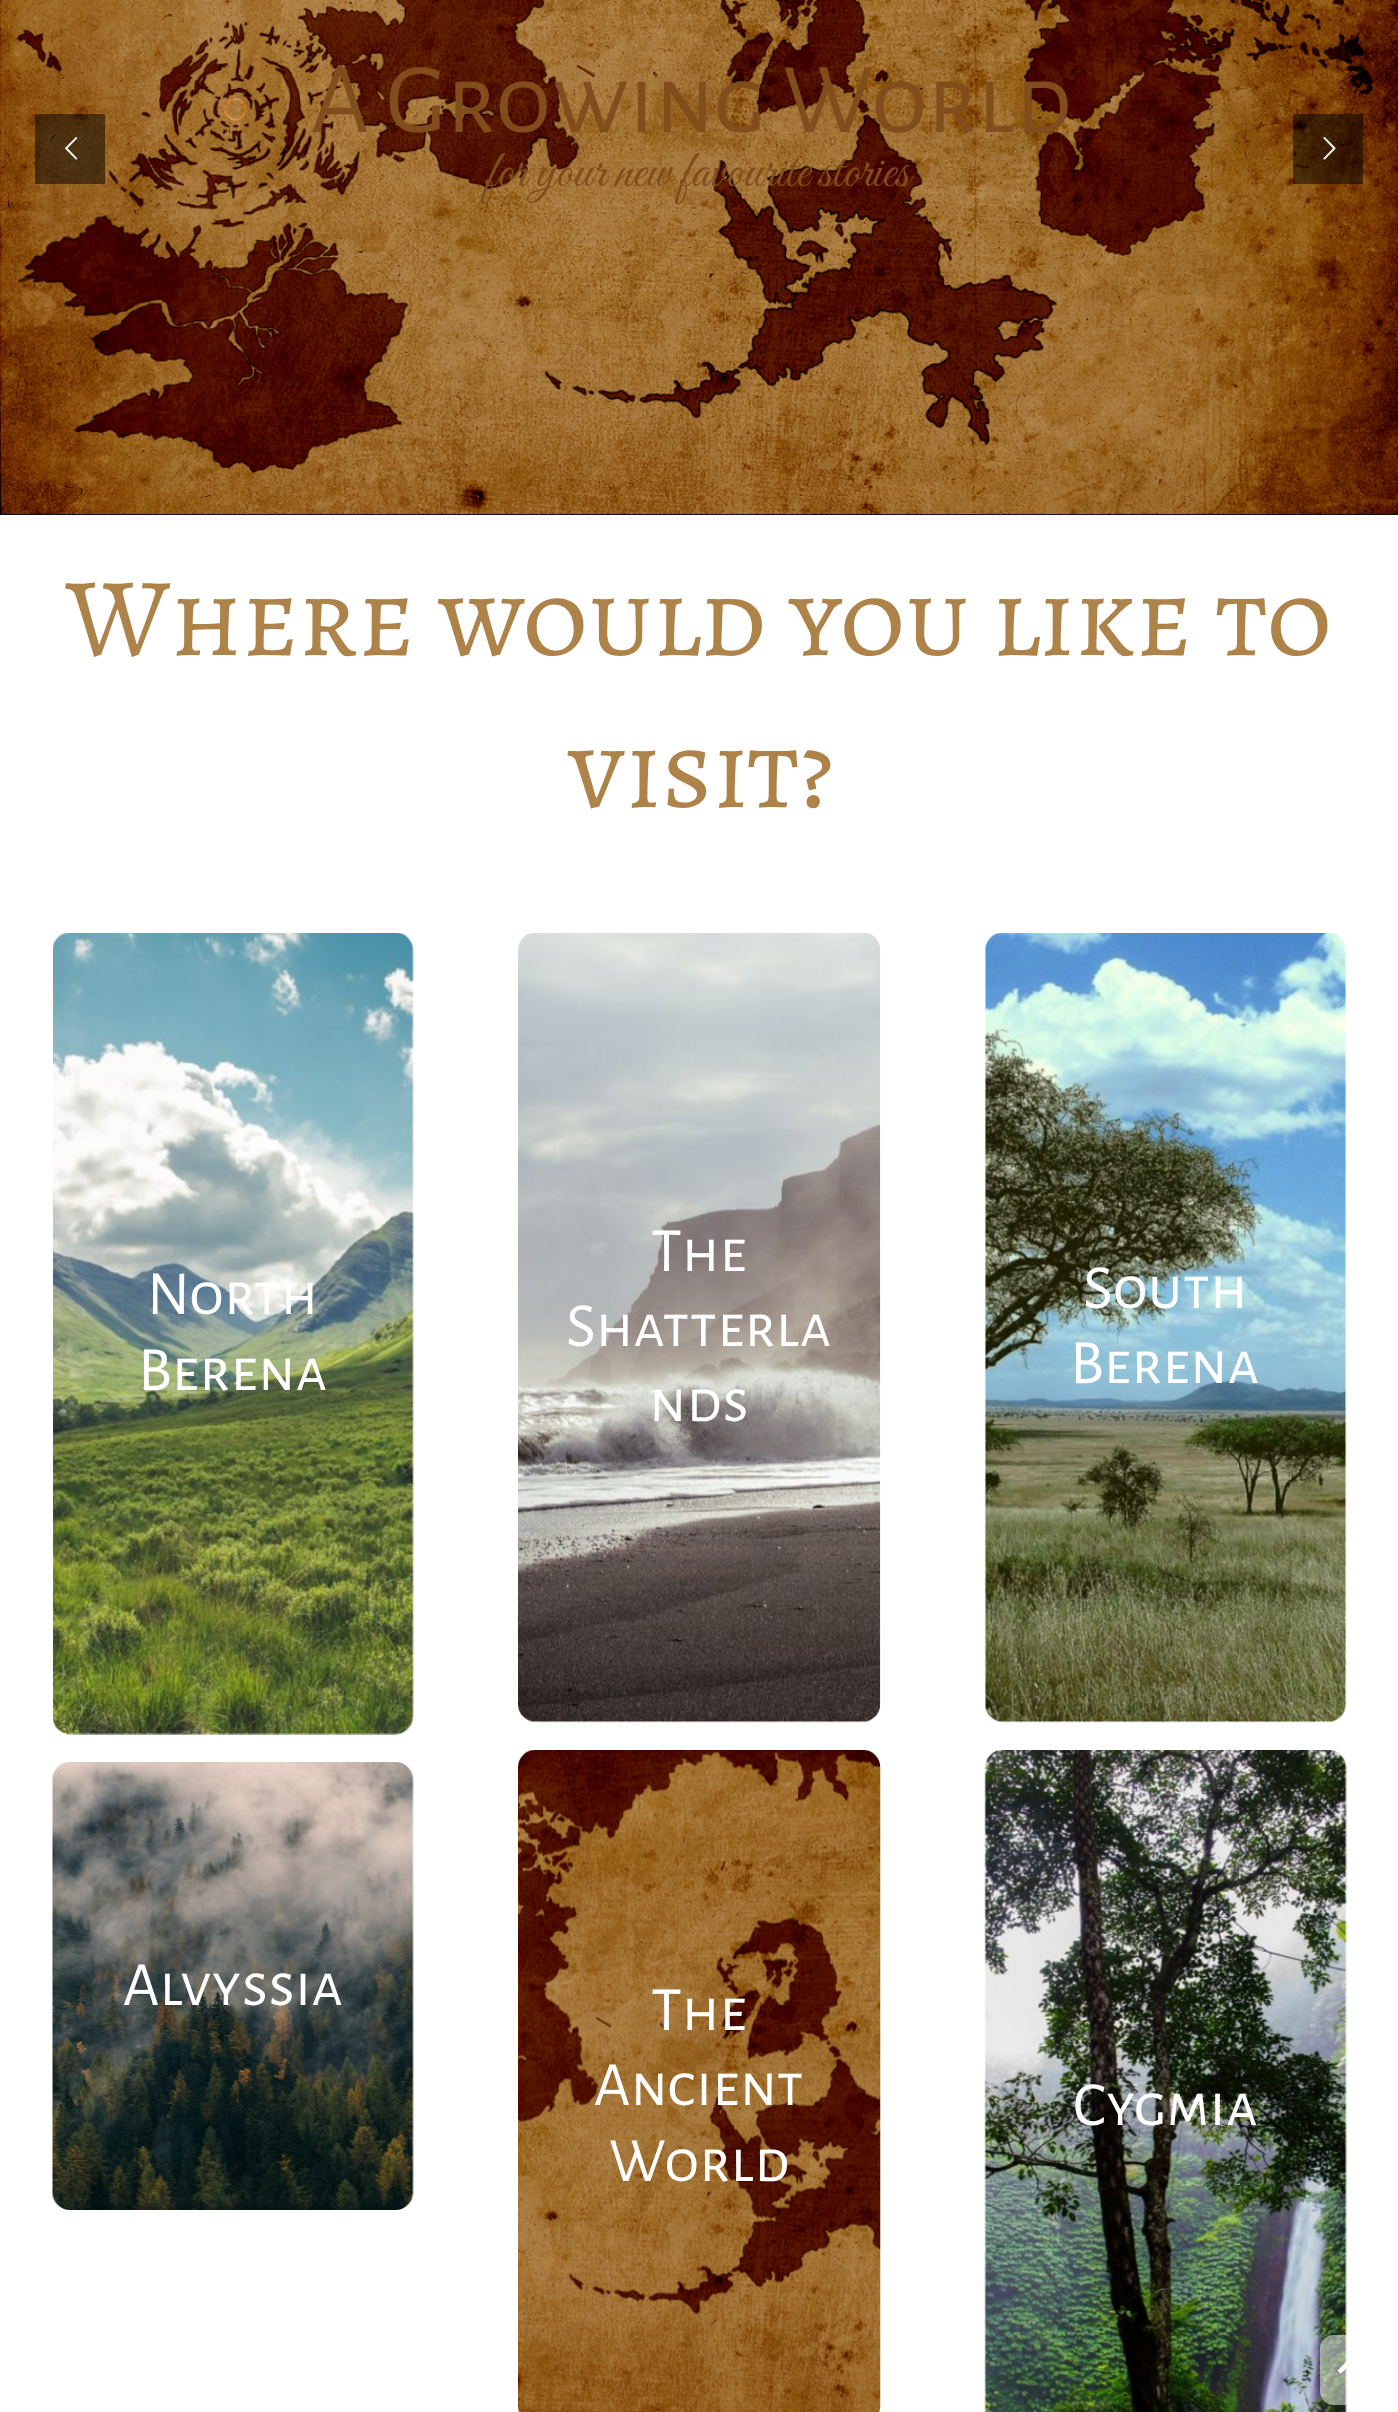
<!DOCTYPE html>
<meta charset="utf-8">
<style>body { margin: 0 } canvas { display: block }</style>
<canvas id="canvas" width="1398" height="2412"></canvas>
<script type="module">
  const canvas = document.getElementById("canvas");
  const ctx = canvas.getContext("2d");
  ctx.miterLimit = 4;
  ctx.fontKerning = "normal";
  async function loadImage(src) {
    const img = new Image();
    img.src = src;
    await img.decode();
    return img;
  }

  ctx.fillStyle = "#0b0d1a";
  ctx.fillRect(0, 0, 1398, 2412);
  ctx.drawImage(await loadImage("img2.png"), 0, 0, 1398, 515);
  ctx.fillStyle = "rgba(0, 0, 0, 0.5)";
  ctx.fillRect(35, 114, 70, 70);
  ctx.drawImage(await loadImage("img1.png"), 65, 137, 13, 23);
  ctx.font = "100.75px Alegreya Sans SC";
  ctx.fillStyle = "#824d1d";
  ctx.fillText("A Growing World", 311, 132);
  ctx.font = "52.5px Great Vibes";
  ctx.fillText("for your new favourite stories", 487, 186);
  ctx.fillStyle = "rgba(0, 0, 0, 0.5)";
  ctx.fillRect(1293, 114, 70, 70);
  ctx.drawImage(await loadImage("img3.png"), 1323, 137, 13, 23);
  ctx.fillStyle = "#ffffff";
  ctx.fillRect(0, 515, 1398, 1897);
  ctx.font = "112px Alegreya SC";
  ctx.fillStyle = "#ad834a";
  ctx.fillText("Where would you like to", 66, 655);
  ctx.fillText("visit?", 567, 807);
  ctx.drawImage(await loadImage("img4.png"), 53, 933, 361, 802);
  ctx.font = "63px Alegreya Sans SC";
  ctx.fillStyle = "#ffffff";
  ctx.fillText("North", 147, 1314);
  ctx.fillText("Berena", 138, 1390);
  ctx.drawImage(await loadImage("img5.png"), 52, 1762, 362, 448);
  ctx.fillText("Alvyssia", 123, 2005);
  ctx.drawImage(await loadImage("img6.png"), 518, 933, 363, 790);
  ctx.fillText("The", 651, 1271);
  ctx.fillText("Shatterla", 566, 1346);
  ctx.fillText("nds", 649, 1421);
  ctx.drawImage(await loadImage("img7.png"), 518, 1750, 363, 662);
  ctx.fillText("The", 651, 2030);
  ctx.fillText("Ancient", 594, 2105);
  ctx.fillText("World", 609, 2181);
  ctx.drawImage(await loadImage("img8.png"), 984, 933, 363, 790);
  ctx.fillText("South", 1083, 1308);
  ctx.fillText("Berena", 1070, 1383);
  ctx.drawImage(await loadImage("img9.png"), 984, 1750, 363, 662);
  ctx.fillText("Cygmia", 1073, 2125);
  ctx.fillStyle = "rgba(255, 255, 255, 0.5)";
  ctx.beginPath();
  ctx.roundRect(1320, 2335, 70, 70, 14);
  ctx.fill();
  ctx.drawImage(await loadImage("img10.png"), 1337, 2361, 10, 13);
</script>
